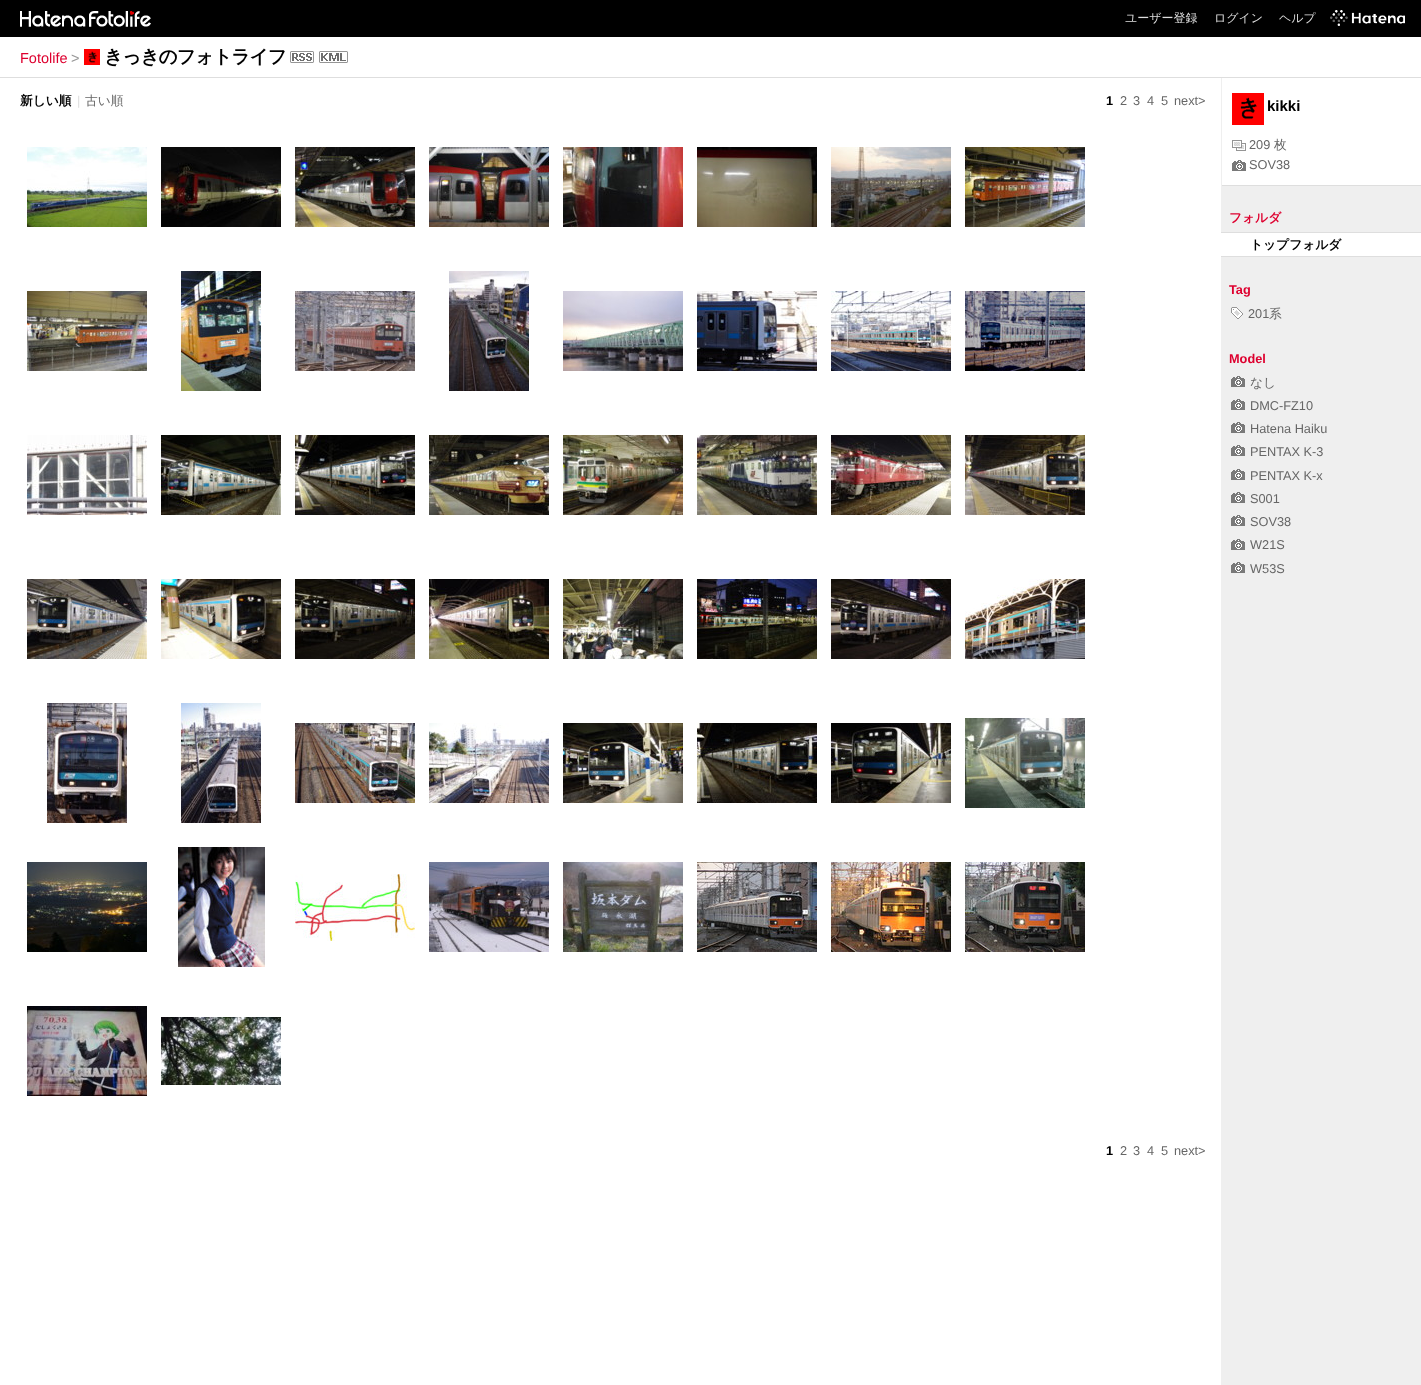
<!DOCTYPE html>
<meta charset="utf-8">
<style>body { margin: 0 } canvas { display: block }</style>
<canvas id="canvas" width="1421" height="1385"></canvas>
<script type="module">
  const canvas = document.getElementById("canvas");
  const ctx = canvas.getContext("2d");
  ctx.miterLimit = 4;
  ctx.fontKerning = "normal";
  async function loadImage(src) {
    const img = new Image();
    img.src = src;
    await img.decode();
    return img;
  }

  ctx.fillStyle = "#ffffff";
  ctx.fillRect(0, 0, 1421, 1385);
  ctx.fillStyle = "#efefef";
  ctx.fillRect(1221, 78, 200, 1307);
  ctx.fillStyle = "#000000";
  ctx.fillRect(0, 0, 1421, 37);
  ctx.drawImage(await loadImage("img1.png"), 20, 11, 66, 16);
  ctx.drawImage(await loadImage("img2.png"), 89, 11, 62, 16);
  ctx.font = "500 12px WenQuanYi Zen Hei";
  ctx.fillStyle = "#dedede";
  ctx.fillText("ユーザー登録", 1125, 22);
  ctx.fillText("ログイン", 1214, 22);
  ctx.fillText("ヘルプ", 1279, 22);
  ctx.drawImage(await loadImage("img3.png"), 1330, 10, 75, 16);
  ctx.fillRect(0, 77, 1421, 1);
  ctx.font = "14.5px Liberation Sans";
  ctx.fillStyle = "#de002f";
  ctx.fillText("Fotolife", 20, 63);
  ctx.fillStyle = "#999999";
  ctx.fillText(">", 71, 63);
  ctx.drawImage(await loadImage("img4.png"), 84, 49, 16, 16);
  ctx.letterSpacing = "-1px";
  ctx.font = "bold 18.75px WenQuanYi Zen Hei";
  ctx.fillStyle = "#000000";
  ctx.fillText("きっきのフォトライフ", 104, 63);
  ctx.drawImage(await loadImage("img5.png"), 290, 51, 24, 12);
  ctx.drawImage(await loadImage("img6.png"), 319, 51, 29, 12);
  ctx.letterSpacing = "0px";
  ctx.font = "bold 12.75px WenQuanYi Zen Hei";
  ctx.fillText("新しい順", 20, 105);
  ctx.font = "12.75px Liberation Sans";
  ctx.fillStyle = "#dedede";
  ctx.fillText("|", 77, 105);
  ctx.font = "500 12.75px WenQuanYi Zen Hei";
  ctx.fillStyle = "#666666";
  ctx.fillText("古い順", 85, 105);
  ctx.font = "bold 12.75px Liberation Sans";
  ctx.fillStyle = "#000000";
  ctx.fillText("1", 1106, 105);
  ctx.font = "12.75px Liberation Sans";
  ctx.fillStyle = "#666666";
  ctx.fillText("2", 1120, 105);
  ctx.fillText("3", 1133, 105);
  ctx.fillText("4", 1147, 105);
  ctx.fillText("5", 1161, 105);
  ctx.fillText("next>", 1174, 105);
  ctx.drawImage(await loadImage("img7.png"), 27, 147, 120, 80);
  ctx.drawImage(await loadImage("img8.png"), 161, 147, 120, 80);
  ctx.drawImage(await loadImage("img9.png"), 295, 147, 120, 80);
  ctx.drawImage(await loadImage("img10.png"), 429, 147, 120, 80);
  ctx.drawImage(await loadImage("img11.png"), 563, 147, 120, 80);
  ctx.drawImage(await loadImage("img12.png"), 697, 147, 120, 80);
  ctx.drawImage(await loadImage("img13.png"), 831, 147, 120, 80);
  ctx.drawImage(await loadImage("img14.png"), 965, 147, 120, 80);
  ctx.drawImage(await loadImage("img15.png"), 27, 291, 120, 80);
  ctx.drawImage(await loadImage("img16.png"), 181, 271, 80, 120);
  ctx.drawImage(await loadImage("img17.png"), 295, 291, 120, 80);
  ctx.drawImage(await loadImage("img18.png"), 449, 271, 80, 120);
  ctx.drawImage(await loadImage("img19.png"), 563, 291, 120, 80);
  ctx.drawImage(await loadImage("img20.png"), 697, 291, 120, 80);
  ctx.drawImage(await loadImage("img21.png"), 831, 291, 120, 80);
  ctx.drawImage(await loadImage("img22.png"), 965, 291, 120, 80);
  ctx.drawImage(await loadImage("img23.png"), 27, 435, 120, 80);
  ctx.drawImage(await loadImage("img24.png"), 161, 435, 120, 80);
  ctx.drawImage(await loadImage("img25.png"), 295, 435, 120, 80);
  ctx.drawImage(await loadImage("img26.png"), 429, 435, 120, 80);
  ctx.drawImage(await loadImage("img27.png"), 563, 435, 120, 80);
  ctx.drawImage(await loadImage("img28.png"), 697, 435, 120, 80);
  ctx.drawImage(await loadImage("img29.png"), 831, 435, 120, 80);
  ctx.drawImage(await loadImage("img30.png"), 965, 435, 120, 80);
  ctx.drawImage(await loadImage("img31.png"), 27, 579, 120, 80);
  ctx.drawImage(await loadImage("img32.png"), 161, 579, 120, 80);
  ctx.drawImage(await loadImage("img33.png"), 295, 579, 120, 80);
  ctx.drawImage(await loadImage("img34.png"), 429, 579, 120, 80);
  ctx.drawImage(await loadImage("img35.png"), 563, 579, 120, 80);
  ctx.drawImage(await loadImage("img36.png"), 697, 579, 120, 80);
  ctx.drawImage(await loadImage("img37.png"), 831, 579, 120, 80);
  ctx.drawImage(await loadImage("img38.png"), 965, 579, 120, 80);
  ctx.drawImage(await loadImage("img39.png"), 47, 703, 80, 120);
  ctx.drawImage(await loadImage("img40.png"), 181, 703, 80, 120);
  ctx.drawImage(await loadImage("img41.png"), 295, 723, 120, 80);
  ctx.drawImage(await loadImage("img42.png"), 429, 723, 120, 80);
  ctx.drawImage(await loadImage("img43.png"), 563, 723, 120, 80);
  ctx.drawImage(await loadImage("img44.png"), 697, 723, 120, 80);
  ctx.drawImage(await loadImage("img45.png"), 831, 723, 120, 80);
  ctx.drawImage(await loadImage("img46.png"), 965, 718, 120, 90);
  ctx.drawImage(await loadImage("img47.png"), 27, 862, 120, 90);
  ctx.drawImage(await loadImage("img48.png"), 178, 847, 87, 120);
  ctx.drawImage(await loadImage("img49.png"), 295, 874, 120, 67);
  ctx.drawImage(await loadImage("img50.png"), 429, 862, 120, 90);
  ctx.drawImage(await loadImage("img51.png"), 563, 862, 120, 90);
  ctx.drawImage(await loadImage("img52.png"), 697, 862, 120, 90);
  ctx.drawImage(await loadImage("img53.png"), 831, 862, 120, 90);
  ctx.drawImage(await loadImage("img54.png"), 965, 862, 120, 90);
  ctx.drawImage(await loadImage("img55.png"), 27, 1006, 120, 90);
  ctx.drawImage(await loadImage("img56.png"), 161, 1017, 120, 68);
  ctx.font = "bold 12.75px Liberation Sans";
  ctx.fillStyle = "#000000";
  ctx.fillText("1", 1106, 1155);
  ctx.font = "12.75px Liberation Sans";
  ctx.fillStyle = "#666666";
  ctx.fillText("2", 1120, 1155);
  ctx.fillText("3", 1133, 1155);
  ctx.fillText("4", 1147, 1155);
  ctx.fillText("5", 1161, 1155);
  ctx.fillText("next>", 1174, 1155);
  ctx.fillStyle = "#ffffff";
  ctx.fillRect(1222, 78, 199, 107);
  ctx.fillStyle = "#dedede";
  ctx.fillRect(1222, 185, 199, 1);
  ctx.drawImage(await loadImage("img57.png"), 1232, 93, 32, 32);
  ctx.font = "bold 15px Liberation Sans";
  ctx.fillStyle = "#000000";
  ctx.fillText("kikki", 1267, 111);
  ctx.drawImage(await loadImage("img58.png"), 1232, 140, 14, 11);
  ctx.font = "12.75px Liberation Sans";
  ctx.fillStyle = "#666666";
  ctx.fillText("209", 1249, 149);
  ctx.font = "500 12.75px WenQuanYi Zen Hei";
  ctx.fillText("枚", 1274, 149);
  ctx.drawImage(await loadImage("img59.png"), 1232, 160, 14, 11);
  ctx.font = "12.75px Liberation Sans";
  ctx.fillText("SOV38", 1249, 169);
  ctx.font = "bold 12.75px WenQuanYi Zen Hei";
  ctx.fillStyle = "#de002f";
  ctx.fillText("フォルダ", 1229, 222);
  ctx.fillStyle = "#ffffff";
  ctx.fillRect(1221, 233, 200, 23);
  ctx.fillStyle = "#dedede";
  ctx.fillRect(1221, 232, 200, 1);
  ctx.fillRect(1221, 256, 200, 1);
  ctx.fillStyle = "#000000";
  ctx.fillText("トップフォルダ", 1250, 249);
  ctx.font = "bold 12.75px Liberation Sans";
  ctx.fillStyle = "#de002f";
  ctx.fillText("Tag", 1229, 294);
  ctx.drawImage(await loadImage("img60.png"), 1231, 307, 12, 12);
  ctx.font = "12.75px Liberation Sans";
  ctx.fillStyle = "#666666";
  ctx.fillText("201", 1248, 318);
  ctx.font = "500 12.75px WenQuanYi Zen Hei";
  ctx.fillText("系", 1269, 318);
  ctx.font = "bold 12.75px Liberation Sans";
  ctx.fillStyle = "#de002f";
  ctx.fillText("Model", 1229, 363);
  ctx.drawImage(await loadImage("img61.png"), 1231, 376, 14, 11);
  ctx.font = "500 12.75px WenQuanYi Zen Hei";
  ctx.fillStyle = "#666666";
  ctx.fillText("なし", 1250, 387);
  ctx.drawImage(await loadImage("img61.png"), 1231, 399, 14, 11);
  ctx.font = "12.75px Liberation Sans";
  ctx.fillText("DMC-FZ10", 1250, 410);
  ctx.drawImage(await loadImage("img61.png"), 1231, 422, 14, 11);
  ctx.fillText("Hatena Haiku", 1250, 433);
  ctx.drawImage(await loadImage("img61.png"), 1231, 445, 14, 11);
  ctx.fillText("PENTAX K-3", 1250, 456);
  ctx.drawImage(await loadImage("img61.png"), 1231, 469, 14, 11);
  ctx.fillText("PENTAX K-x", 1250, 480);
  ctx.drawImage(await loadImage("img61.png"), 1231, 492, 14, 11);
  ctx.fillText("S001", 1250, 503);
  ctx.drawImage(await loadImage("img61.png"), 1231, 515, 14, 11);
  ctx.fillText("SOV38", 1250, 526);
  ctx.drawImage(await loadImage("img61.png"), 1231, 539, 14, 11);
  ctx.fillText("W21S", 1250, 549);
  ctx.drawImage(await loadImage("img61.png"), 1231, 562, 14, 11);
  ctx.fillText("W53S", 1250, 573);
</script>
